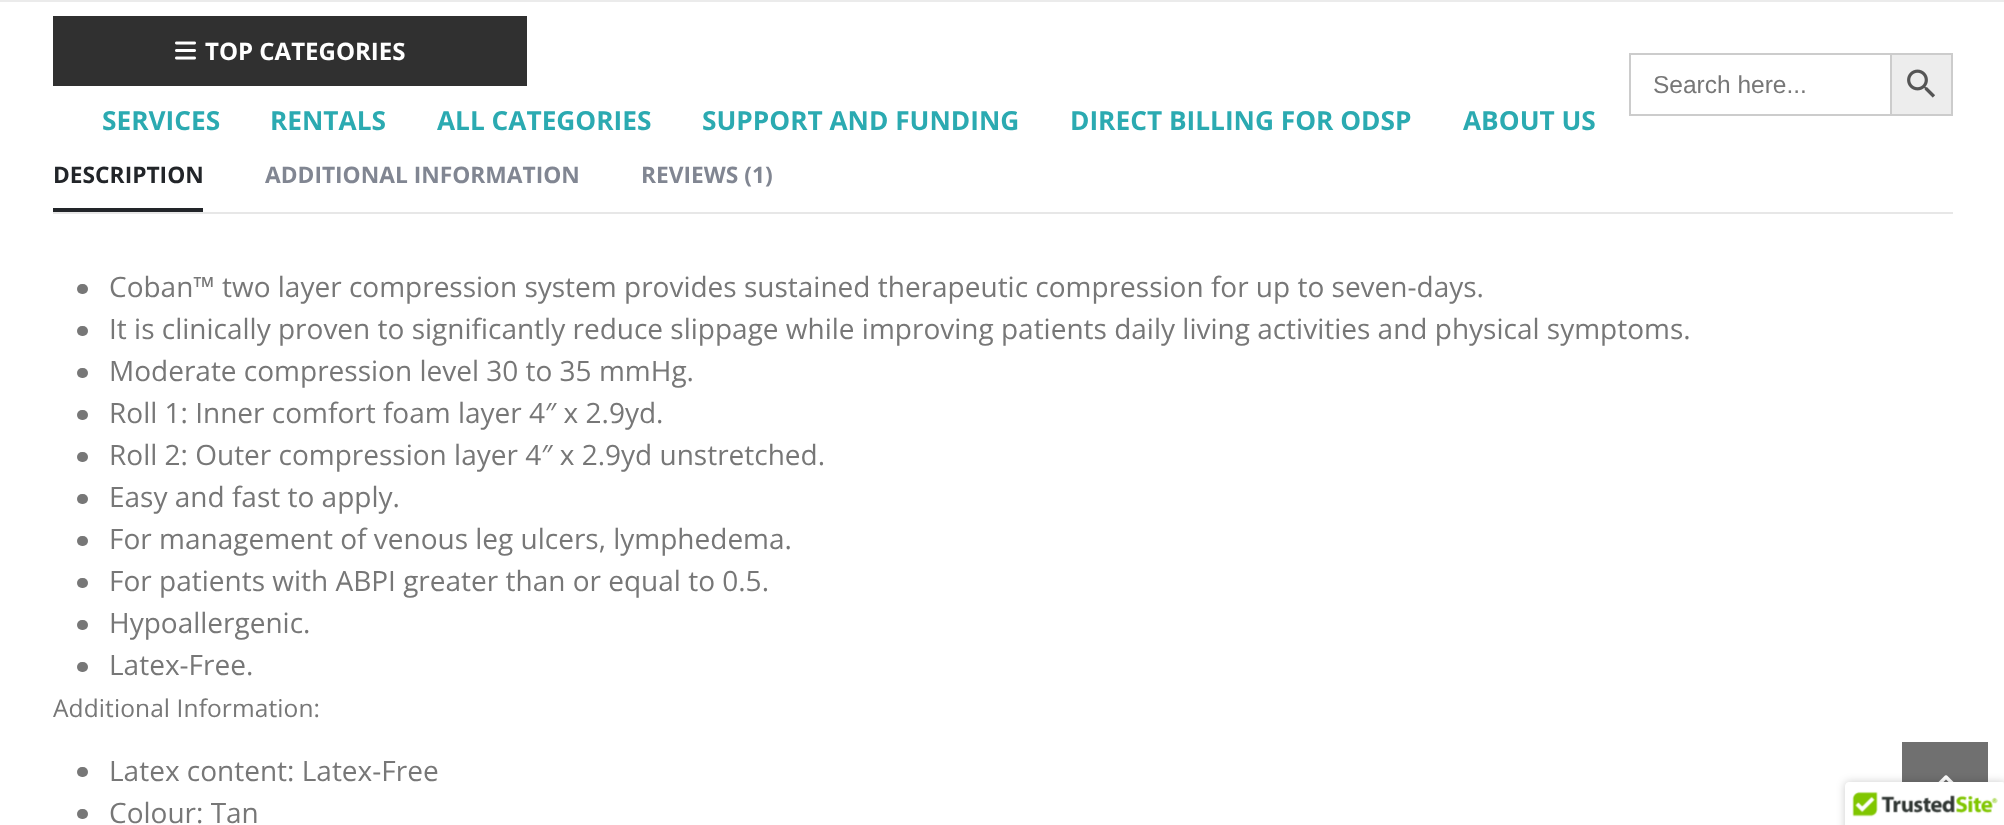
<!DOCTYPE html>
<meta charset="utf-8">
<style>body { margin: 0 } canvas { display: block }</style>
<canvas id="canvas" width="2004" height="825"></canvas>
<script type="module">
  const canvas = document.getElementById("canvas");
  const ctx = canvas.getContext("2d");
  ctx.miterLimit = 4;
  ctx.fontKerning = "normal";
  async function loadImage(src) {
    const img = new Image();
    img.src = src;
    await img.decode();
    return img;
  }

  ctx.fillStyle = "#ffffff";
  ctx.fillRect(0, 0, 2004, 825);
  ctx.fillStyle = "#ebebeb";
  ctx.fillRect(0, 0, 2004, 2);
  ctx.fillStyle = "#303030";
  ctx.fillRect(53, 16, 474, 70);
  ctx.drawImage(await loadImage("img1.png"), 175, 41, 21, 19);
  ctx.font = "bold 24px Open Sans";
  ctx.fillStyle = "#ffffff";
  ctx.fillText("TOP CATEGORIES", 205, 60);
  ctx.font = "bold 26.25px Open Sans";
  ctx.fillStyle = "#2baab1";
  ctx.fillText("SERVICES", 102, 130);
  ctx.fillText("RENTALS", 270, 130);
  ctx.fillText("ALL CATEGORIES", 437, 130);
  ctx.fillText("SUPPORT AND FUNDING", 702, 130);
  ctx.fillText("DIRECT BILLING FOR ODSP", 1070, 130);
  ctx.fillText("ABOUT US", 1463, 130);
  ctx.fillStyle = "#cccccc";
  ctx.fillRect(1629, 53, 261, 2);
  ctx.fillRect(1629, 114, 261, 2);
  ctx.fillRect(1629, 53, 2, 63);
  ctx.font = "24.5px Liberation Sans";
  ctx.fillStyle = "#777777";
  ctx.fillText("Search here...", 1653, 93);
  ctx.fillStyle = "#ededed";
  ctx.beginPath();
  ctx.rect(1891, 54, 61, 61);
  ctx.fill();
  ctx.strokeStyle = "#cccccc";
  ctx.lineWidth = 2;
  ctx.stroke();
  ctx.drawImage(await loadImage("img2.png"), 1907, 69, 28, 29);
  ctx.fillStyle = "#222529";
  ctx.fillRect(53, 208, 150, 4);
  ctx.font = "bold 22.75px Open Sans";
  ctx.fillText("DESCRIPTION", 53, 183);
  ctx.fillStyle = "#818692";
  ctx.fillText("ADDITIONAL INFORMATION", 265, 183);
  ctx.fillText("REVIEWS (1)", 641, 183);
  ctx.fillStyle = "#e7e7e7";
  ctx.fillRect(53, 212, 1900, 2);
  ctx.fillStyle = "#777777";
  ctx.beginPath();
  ctx.roundRect(77, 284, 11, 10, 5);
  ctx.fill();
  ctx.font = "28px Open Sans";
  ctx.fillText("Coban™ two layer compression system provides sustained therapeutic compression for up to seven-days.", 109, 297);
  ctx.beginPath();
  ctx.roundRect(77, 326, 11, 10, 5);
  ctx.fill();
  ctx.fillText("It is clinically proven to significantly reduce slippage while improving patients daily living activities and physical symptoms.", 109, 339);
  ctx.beginPath();
  ctx.roundRect(77, 368, 11, 10, 5);
  ctx.fill();
  ctx.fillText("Moderate compression level 30 to 35 mmHg.", 109, 381);
  ctx.beginPath();
  ctx.roundRect(77, 410, 11, 10, 5);
  ctx.fill();
  ctx.fillText("Roll 1: Inner comfort foam layer 4″ x 2.9yd.", 109, 423);
  ctx.beginPath();
  ctx.roundRect(77, 452, 11, 10, 5);
  ctx.fill();
  ctx.fillText("Roll 2: Outer compression layer 4″ x 2.9yd unstretched.", 109, 465);
  ctx.beginPath();
  ctx.roundRect(77, 494, 11, 10, 5);
  ctx.fill();
  ctx.fillText("Easy and fast to apply.", 109, 507);
  ctx.beginPath();
  ctx.roundRect(77, 536, 11, 10, 5);
  ctx.fill();
  ctx.fillText("For management of venous leg ulcers, lymphedema.", 109, 549);
  ctx.beginPath();
  ctx.roundRect(77, 578, 11, 10, 5);
  ctx.fill();
  ctx.fillText("For patients with ABPI greater than or equal to 0.5.", 109, 591);
  ctx.beginPath();
  ctx.roundRect(77, 620, 11, 10, 5);
  ctx.fill();
  ctx.fillText("Hypoallergenic.", 109, 633);
  ctx.beginPath();
  ctx.roundRect(77, 662, 11, 10, 5);
  ctx.fill();
  ctx.fillText("Latex-Free.", 109, 675);
  ctx.letterSpacing = "0.1px";
  ctx.font = "24.5px Open Sans";
  ctx.fillText("Additional Information:", 53, 717);
  ctx.beginPath();
  ctx.roundRect(77, 767, 11, 10, 5);
  ctx.fill();
  ctx.letterSpacing = "0px";
  ctx.font = "28px Open Sans";
  ctx.fillText("Latex content: Latex-Free", 109, 781);
  ctx.beginPath();
  ctx.roundRect(77, 809, 11, 10, 5);
  ctx.fill();
  ctx.fillText("Colour: Tan", 109, 823);
  ctx.fillStyle = "#707070";
  ctx.fillRect(1902, 742, 86, 40);
  ctx.drawImage(await loadImage("img3.png"), 1938, 775, 16, 7);
  ctx.fillStyle = "rgba(0, 0, 0, 0.2)";
  ctx.filter = "blur(4.5px)";
  ctx.beginPath();
  ctx.roundRect(1845, 782, 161, 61, 4);
  ctx.fill();
  ctx.filter = "none";
  ctx.fillStyle = "#ffffff";
  ctx.beginPath();
  ctx.moveTo(1849, 782);
  ctx.lineTo(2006, 782);
  ctx.lineTo(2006, 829);
  ctx.lineTo(1845, 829);
  ctx.lineTo(1845, 786);
  ctx.bezierCurveTo(1845, 784, 1847, 782, 1849, 782);
  ctx.closePath();
  ctx.fill();
  ctx.drawImage(await loadImage("img4.png"), 1852, 782, 152, 35);
</script>
